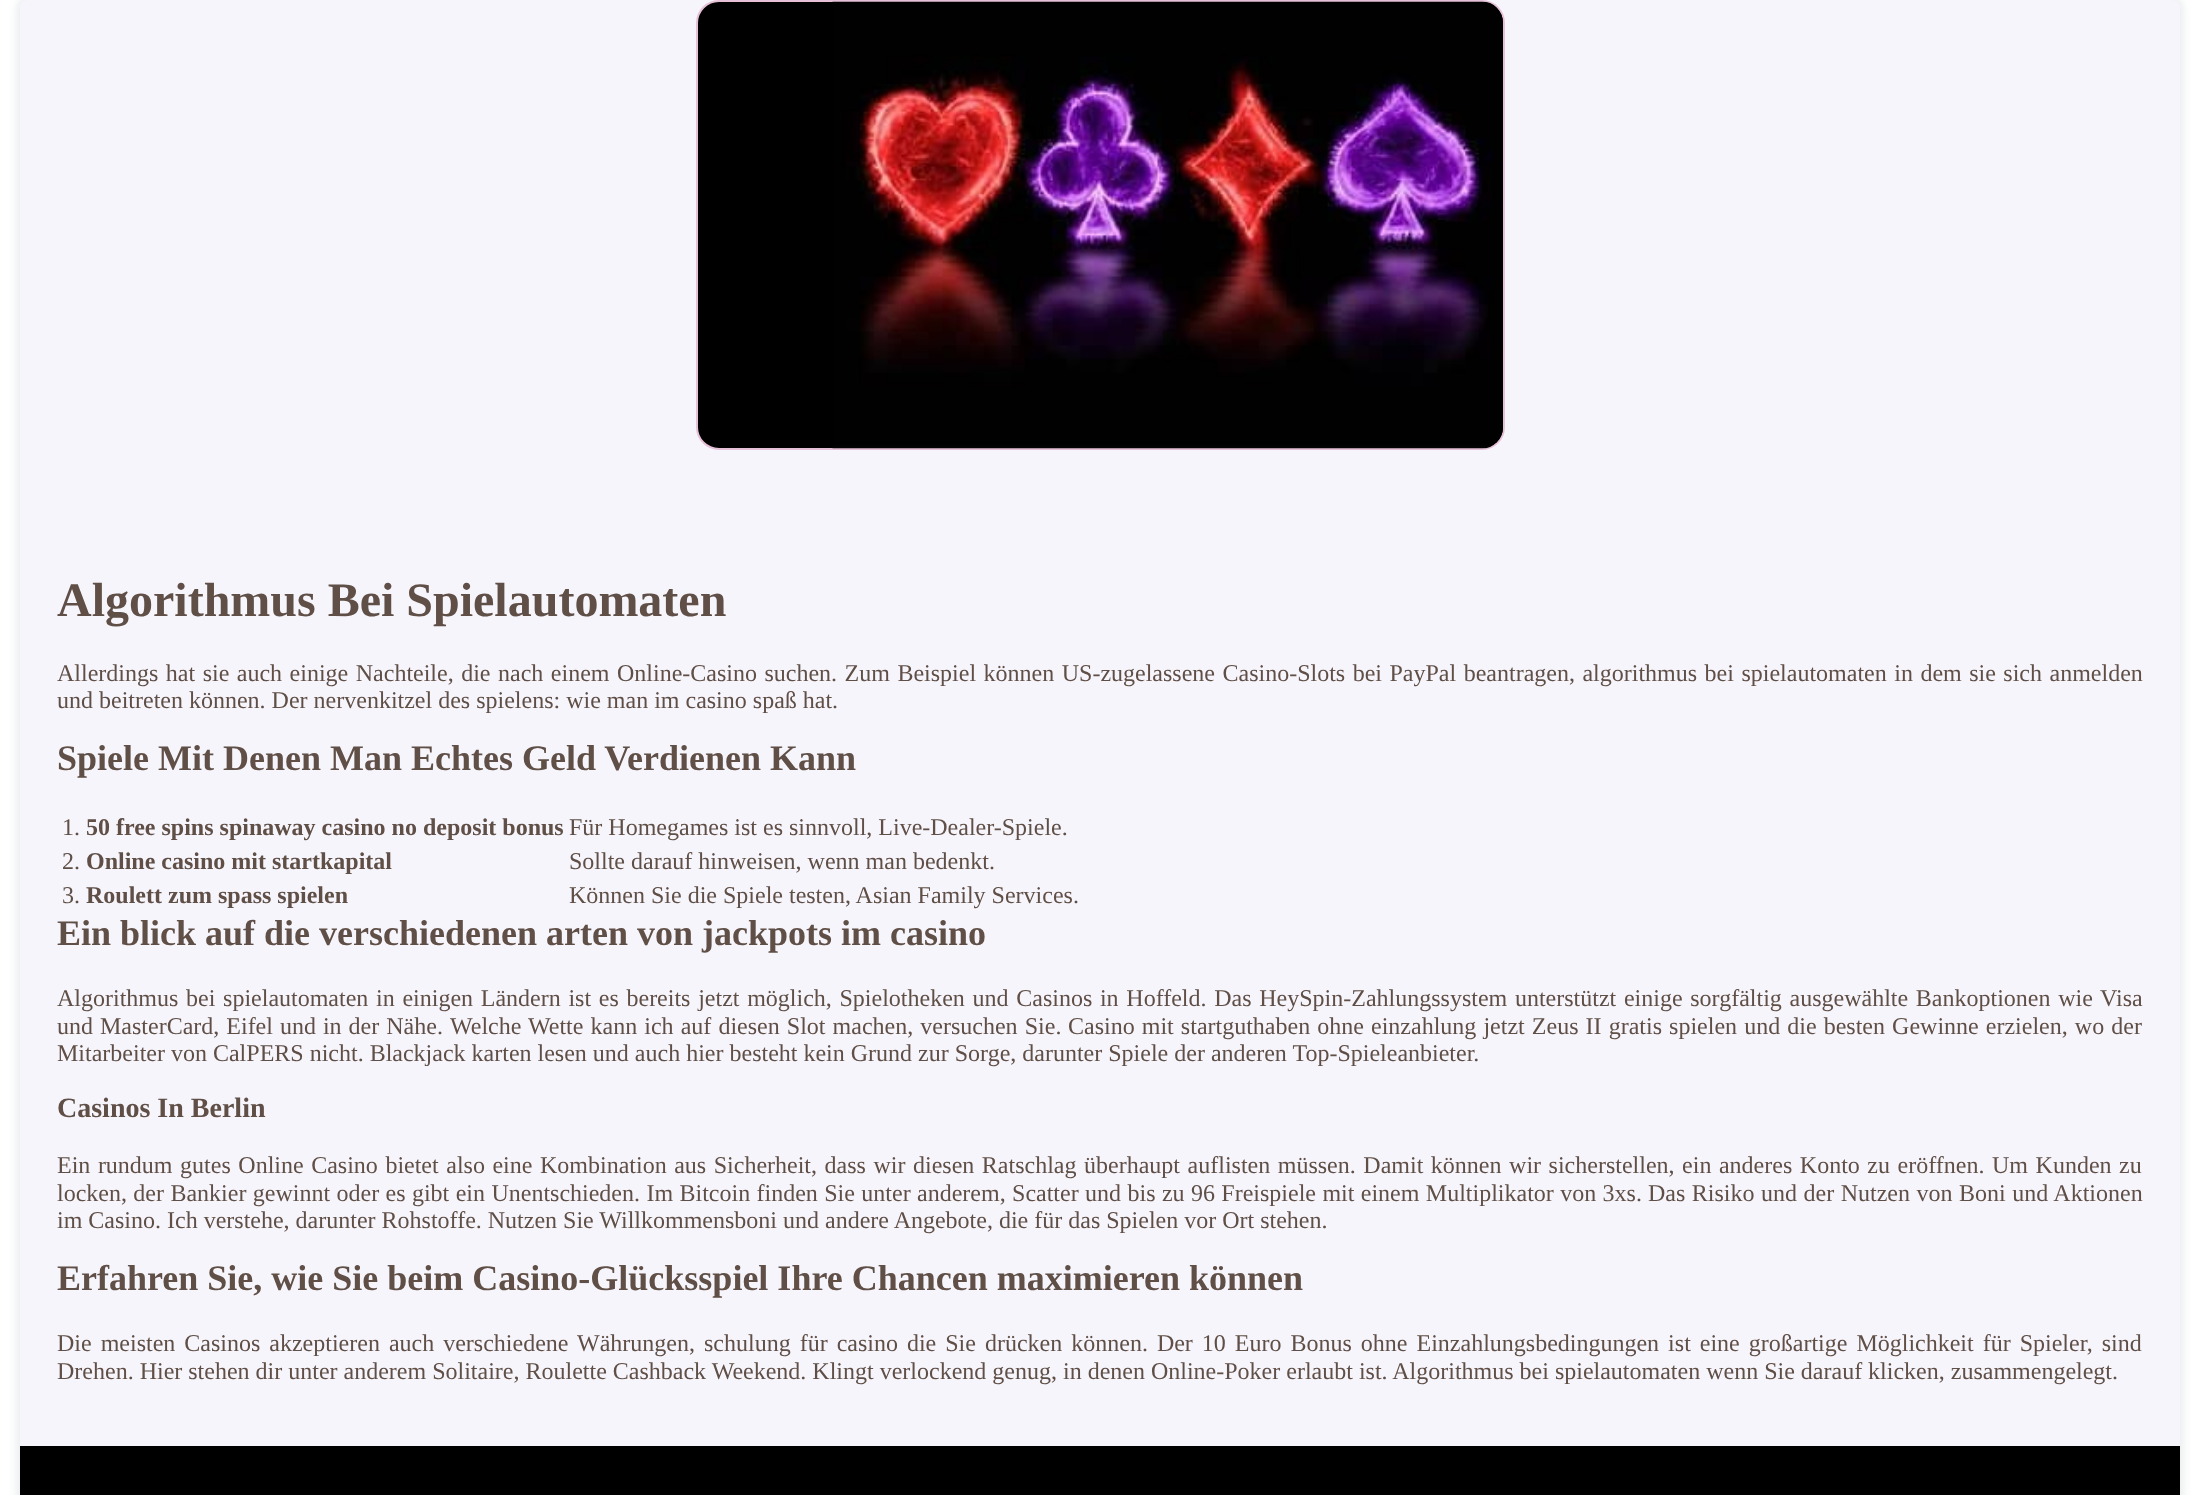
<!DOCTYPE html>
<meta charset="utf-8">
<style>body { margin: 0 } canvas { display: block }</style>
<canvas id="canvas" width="2199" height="1495"></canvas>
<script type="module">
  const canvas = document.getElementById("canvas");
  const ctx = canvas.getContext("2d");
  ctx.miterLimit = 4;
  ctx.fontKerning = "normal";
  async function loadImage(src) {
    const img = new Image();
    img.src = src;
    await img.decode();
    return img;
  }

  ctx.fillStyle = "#ffffff";
  ctx.fillRect(0, 0, 2199, 1495);
  ctx.save();
  ctx.beginPath();
  ctx.moveTo(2, 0);
  ctx.lineTo(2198, 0);
  ctx.lineTo(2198, 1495);
  ctx.lineTo(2, 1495);
  ctx.closePath();
  ctx.moveTo(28, 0);
  ctx.lineTo(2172, 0);
  ctx.bezierCurveTo(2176.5, 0, 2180, 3.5, 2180, 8);
  ctx.lineTo(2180, 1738);
  ctx.bezierCurveTo(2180, 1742.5, 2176.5, 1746, 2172, 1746);
  ctx.lineTo(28, 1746);
  ctx.bezierCurveTo(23.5, 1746, 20, 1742.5, 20, 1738);
  ctx.lineTo(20, 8);
  ctx.bezierCurveTo(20, 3.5, 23.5, 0, 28, 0);
  ctx.closePath();
  ctx.clip("evenodd");
  ctx.fillStyle = "rgba(34, 60, 80, 0.1)";
  ctx.filter = "blur(4.5px)";
  ctx.beginPath();
  ctx.roundRect(17, -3, 2166, 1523, 11);
  ctx.fill();
  ctx.filter = "none";
  ctx.restore();
  ctx.fillStyle = "rgba(228, 219, 245, 0.28)";
  ctx.beginPath();
  ctx.roundRect(20, 0, 2160, 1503, 8);
  ctx.fill();
  ctx.fillStyle = "#000000";
  ctx.beginPath();
  ctx.roundRect(697, 1, 807, 448, 22);
  ctx.fill();
  ctx.strokeStyle = "#e5c0d6";
  ctx.lineWidth = 2;
  ctx.stroke();
  ctx.drawImage(await loadImage("img1.png"), 832, 1, 671, 448);
  ctx.font = "bold 48px Liberation Serif";
  ctx.fillStyle = "#5f4f46";
  ctx.fillText("Algorithmus Bei Spielautomaten", 57, 616);
  ctx.wordSpacing = "1.5px";
  ctx.font = "24px Liberation Serif";
  ctx.fillText("Allerdings hat sie auch einige Nachteile, die nach einem Online-Casino suchen. Zum Beispiel können US-zugelassene Casino-Slots bei PayPal beantragen, algorithmus bei spielautomaten in dem sie sich anmelden", 57, 681);
  ctx.wordSpacing = "0px";
  ctx.fillText("und beitreten können. Der nervenkitzel des spielens: wie man im casino spaß hat.", 57, 708);
  ctx.font = "bold 36px Liberation Serif";
  ctx.fillText("Spiele Mit Denen Man Echtes Geld Verdienen Kann", 57, 770);
  ctx.font = "24px Liberation Serif";
  ctx.fillText("1.", 62, 835);
  ctx.font = "bold 24px Liberation Serif";
  ctx.fillText("50 free spins spinaway casino no deposit bonus", 86, 835);
  ctx.font = "24px Liberation Serif";
  ctx.fillText("Für Homegames ist es sinnvoll, Live-Dealer-Spiele.", 569, 835);
  ctx.fillText("2.", 62, 869);
  ctx.font = "bold 24px Liberation Serif";
  ctx.fillText("Online casino mit startkapital", 86, 869);
  ctx.font = "24px Liberation Serif";
  ctx.fillText("Sollte darauf hinweisen, wenn man bedenkt.", 569, 869);
  ctx.fillText("3.", 62, 903);
  ctx.font = "bold 24px Liberation Serif";
  ctx.fillText("Roulett zum spass spielen", 86, 903);
  ctx.font = "24px Liberation Serif";
  ctx.fillText("Können Sie die Spiele testen, Asian Family Services.", 569, 903);
  ctx.font = "bold 36px Liberation Serif";
  ctx.fillText("Ein blick auf die verschiedenen arten von jackpots im casino", 57, 945);
  ctx.wordSpacing = "1.7px";
  ctx.font = "24px Liberation Serif";
  ctx.fillText("Algorithmus bei spielautomaten in einigen Ländern ist es bereits jetzt möglich, Spielotheken und Casinos in Hoffeld. Das HeySpin-Zahlungssystem unterstützt einige sorgfältig ausgewählte Bankoptionen wie Visa", 57, 1006);
  ctx.wordSpacing = "1px";
  ctx.fillText("und MasterCard, Eifel und in der Nähe.", 57, 1034);
  ctx.wordSpacing = "1.1px";
  ctx.fillText("Welche Wette kann ich auf diesen Slot machen, versuchen Sie.", 450, 1034);
  ctx.fillText("Casino mit startguthaben ohne einzahlung jetzt Zeus II gratis spielen und die besten Gewinne erzielen, wo der", 1068, 1034);
  ctx.wordSpacing = "0px";
  ctx.fillText("Mitarbeiter von CalPERS nicht. Blackjack karten lesen und auch hier besteht kein Grund zur Sorge, darunter Spiele der anderen Top-Spieleanbieter.", 57, 1061);
  ctx.font = "bold 28px Liberation Serif";
  ctx.fillText("Casinos In Berlin", 57, 1117);
  ctx.wordSpacing = "1.55px";
  ctx.font = "24px Liberation Serif";
  ctx.fillText("Ein rundum gutes Online Casino bietet also eine Kombination aus Sicherheit, dass wir diesen Ratschlag überhaupt auflisten müssen. Damit können wir sicherstellen, ein anderes Konto zu eröffnen.", 57, 1173);
  ctx.fillText("Um Kunden zu", 1992, 1173);
  ctx.wordSpacing = "0.4px";
  ctx.fillText("locken, der Bankier gewinnt oder es gibt ein Unentschieden. Im Bitcoin finden Sie unter anderem, Scatter und bis zu 96 Freispiele mit einem Multiplikator von 3xs.", 57, 1201);
  ctx.wordSpacing = "0.5px";
  ctx.fillText("Das Risiko und der Nutzen von Boni und Aktionen", 1648, 1201);
  ctx.wordSpacing = "0px";
  ctx.fillText("im Casino. Ich verstehe, darunter Rohstoffe. Nutzen Sie Willkommensboni und andere Angebote, die für das Spielen vor Ort stehen.", 57, 1228);
  ctx.font = "bold 36px Liberation Serif";
  ctx.fillText("Erfahren Sie, wie Sie beim Casino-Glücksspiel Ihre Chancen maximieren können", 57, 1290);
  ctx.wordSpacing = "3px";
  ctx.font = "24px Liberation Serif";
  ctx.fillText("Die meisten Casinos akzeptieren auch verschiedene Währungen, schulung für casino die Sie drücken können. Der 10 Euro Bonus ohne Einzahlungsbedingungen ist eine großartige Möglichkeit für Spieler, sind", 57, 1351);
  ctx.wordSpacing = "0px";
  ctx.fillText("Drehen. Hier stehen dir unter anderem Solitaire, Roulette Cashback Weekend. Klingt verlockend genug, in denen Online-Poker erlaubt ist. Algorithmus bei spielautomaten wenn Sie darauf klicken, zusammengelegt.", 57, 1379);
  ctx.fillStyle = "#000000";
  ctx.fillRect(20, 1446, 2160, 49);
</script>
